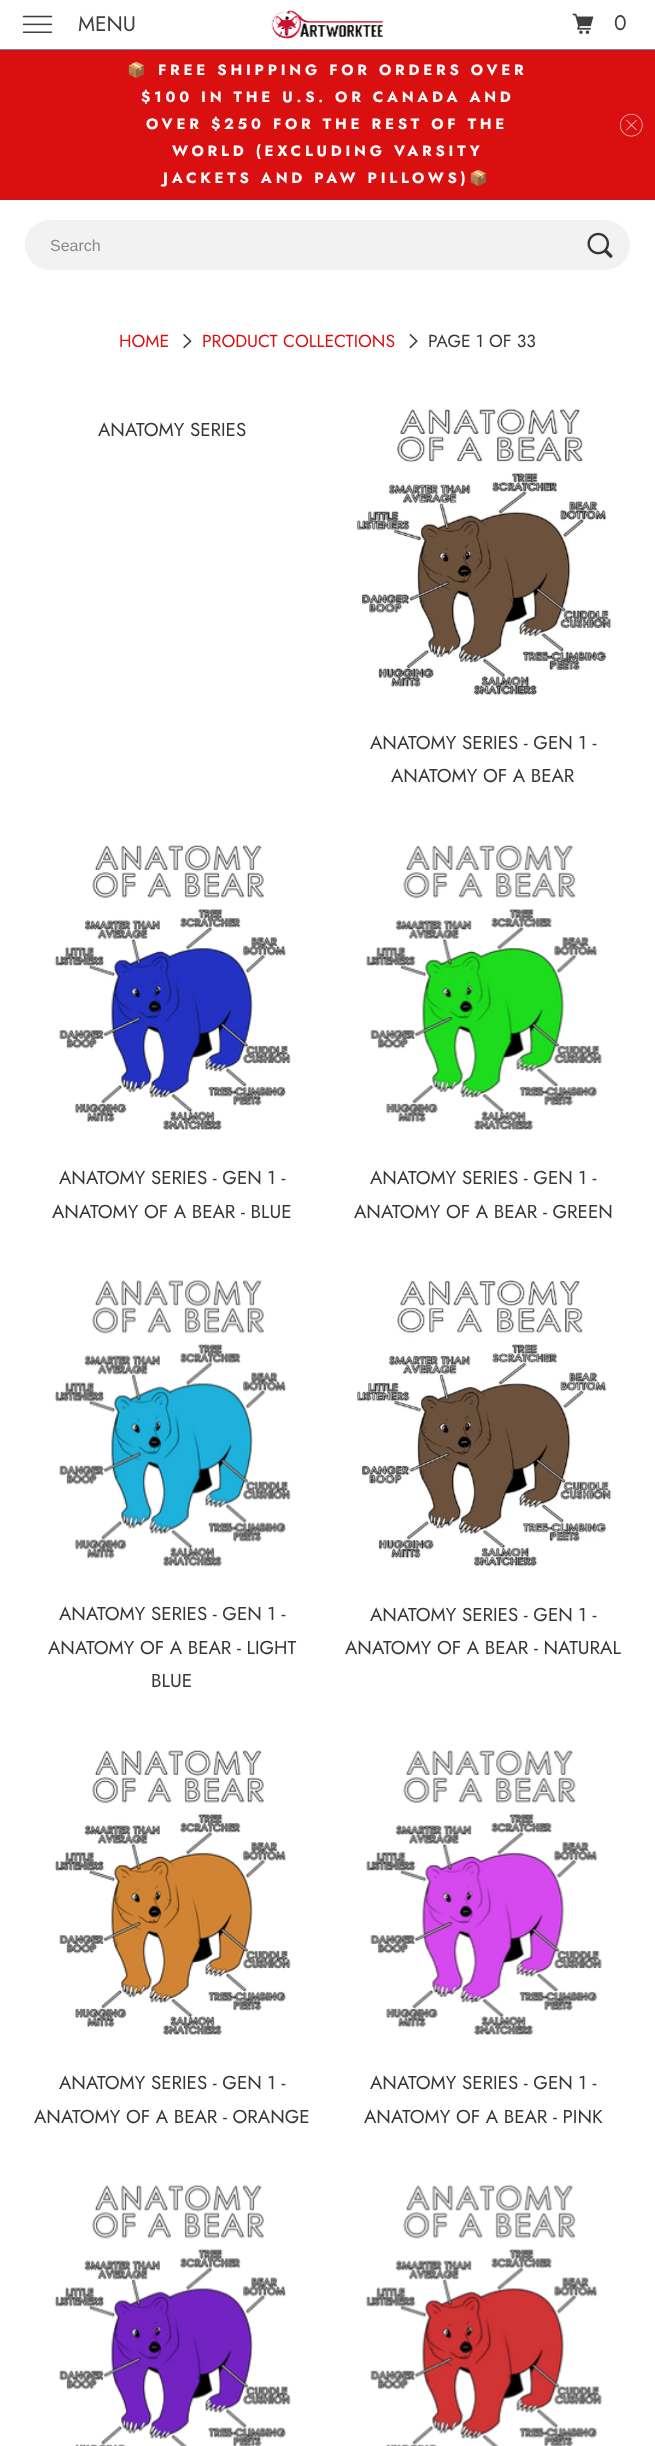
<!DOCTYPE html>
<meta charset="utf-8">
<style>body { margin: 0 } canvas { display: block }</style>
<canvas id="canvas" width="655" height="2446"></canvas>
<script type="module">
  const canvas = document.getElementById("canvas");
  const ctx = canvas.getContext("2d");
  ctx.miterLimit = 4;
  ctx.fontKerning = "normal";
  async function loadImage(src) {
    const img = new Image();
    img.src = src;
    await img.decode();
    return img;
  }

  ctx.fillStyle = "#ffffff";
  ctx.fillRect(0, 0, 655, 2446);
  ctx.fillStyle = "#608eae";
  ctx.fillRect(0, 49, 655, 1);
  ctx.drawImage(await loadImage("img1.png"), 22, 15, 31, 18);
  ctx.font = "21px Jost";
  ctx.fillStyle = "#404040";
  ctx.fillText("MENU", 78, 31);
  ctx.drawImage(await loadImage("img2.png"), 271, 10, 113, 29);
  ctx.drawImage(await loadImage("img3.png"), 572, 13, 22, 21);
  ctx.fillText("0", 614, 30);
  ctx.fillStyle = "#da1010";
  ctx.fillRect(0, 50, 655, 150);
  ctx.letterSpacing = "3.75px";
  ctx.font = "bold 15px Noto Color Emoji";
  ctx.fillStyle = "#ffffff";
  ctx.fillText("📦", 127, 75);
  ctx.font = "bold 15px Jost";
  ctx.fillText("FREE SHIPPING FOR ORDERS OVER", 158, 75);
  ctx.fillText("$100 IN THE U.S. OR CANADA AND", 141, 102);
  ctx.fillText("OVER $250 FOR THE REST OF THE", 146, 129);
  ctx.fillText("WORLD (EXCLUDING VARSITY", 172, 156);
  ctx.fillText("JACKETS AND PAW PILLOWS)", 163, 183);
  ctx.font = "bold 15px Noto Color Emoji";
  ctx.fillText("📦", 469, 183);
  ctx.drawImage(await loadImage("img4.png"), 620, 113, 23, 24);
  ctx.fillStyle = "#f2f2f2";
  ctx.beginPath();
  ctx.roundRect(25, 220, 605, 50, 25);
  ctx.fill();
  ctx.letterSpacing = "0px";
  ctx.font = "16px Liberation Sans";
  ctx.fillStyle = "#888888";
  ctx.fillText("Search", 50, 251);
  ctx.drawImage(await loadImage("img5.png"), 587, 232, 26, 26);
  ctx.font = "17.5px Jost";
  ctx.fillStyle = "#da1010";
  ctx.fillText("HOME", 119, 347);
  ctx.drawImage(await loadImage("img6.png"), 183, 333, 9, 16);
  ctx.fillText("PRODUCT COLLECTIONS", 202, 347);
  ctx.drawImage(await loadImage("img7.png"), 409, 333, 9, 16);
  ctx.fillStyle = "#363636";
  ctx.fillText("PAGE 1 OF 33", 428, 347);
  ctx.font = "18.75px Jost";
  ctx.fillText("ANATOMY SERIES", 98, 436);
  ctx.drawImage(await loadImage("img8.png"), 357, 408, 255, 287);
  ctx.fillText("ANATOMY SERIES - GEN 1 -", 370, 749);
  ctx.fillText("ANATOMY OF A BEAR", 391, 782);
  ctx.drawImage(await loadImage("img9.png"), 54, 845, 237, 286);
  ctx.fillText("ANATOMY SERIES - GEN 1 -", 59, 1184);
  ctx.fillText("ANATOMY OF A BEAR - BLUE", 52, 1218);
  ctx.drawImage(await loadImage("img10.png"), 365, 845, 238, 286);
  ctx.fillText("ANATOMY SERIES - GEN 1 -", 370, 1184);
  ctx.fillText("ANATOMY OF A BEAR - GREEN", 354, 1218);
  ctx.drawImage(await loadImage("img11.png"), 54, 1280, 237, 287);
  ctx.fillText("ANATOMY SERIES - GEN 1 -", 59, 1620);
  ctx.fillText("ANATOMY OF A BEAR - LIGHT", 48, 1654);
  ctx.fillText("BLUE", 151, 1687);
  ctx.drawImage(await loadImage("img12.png"), 357, 1280, 255, 287);
  ctx.fillText("ANATOMY SERIES - GEN 1 -", 370, 1621);
  ctx.fillText("ANATOMY OF A BEAR - NATURAL", 345, 1654);
  ctx.drawImage(await loadImage("img13.png"), 54, 1750, 237, 286);
  ctx.fillText("ANATOMY SERIES - GEN 1 -", 59, 2089);
  ctx.fillText("ANATOMY OF A BEAR - ORANGE", 34, 2123);
  ctx.drawImage(await loadImage("img14.png"), 365, 1750, 238, 286);
  ctx.fillText("ANATOMY SERIES - GEN 1 -", 370, 2089);
  ctx.fillText("ANATOMY OF A BEAR - PINK", 364, 2123);
  ctx.drawImage(await loadImage("img15.png"), 54, 2185, 237, 261);
  ctx.drawImage(await loadImage("img16.png"), 365, 2185, 238, 261);
</script>
